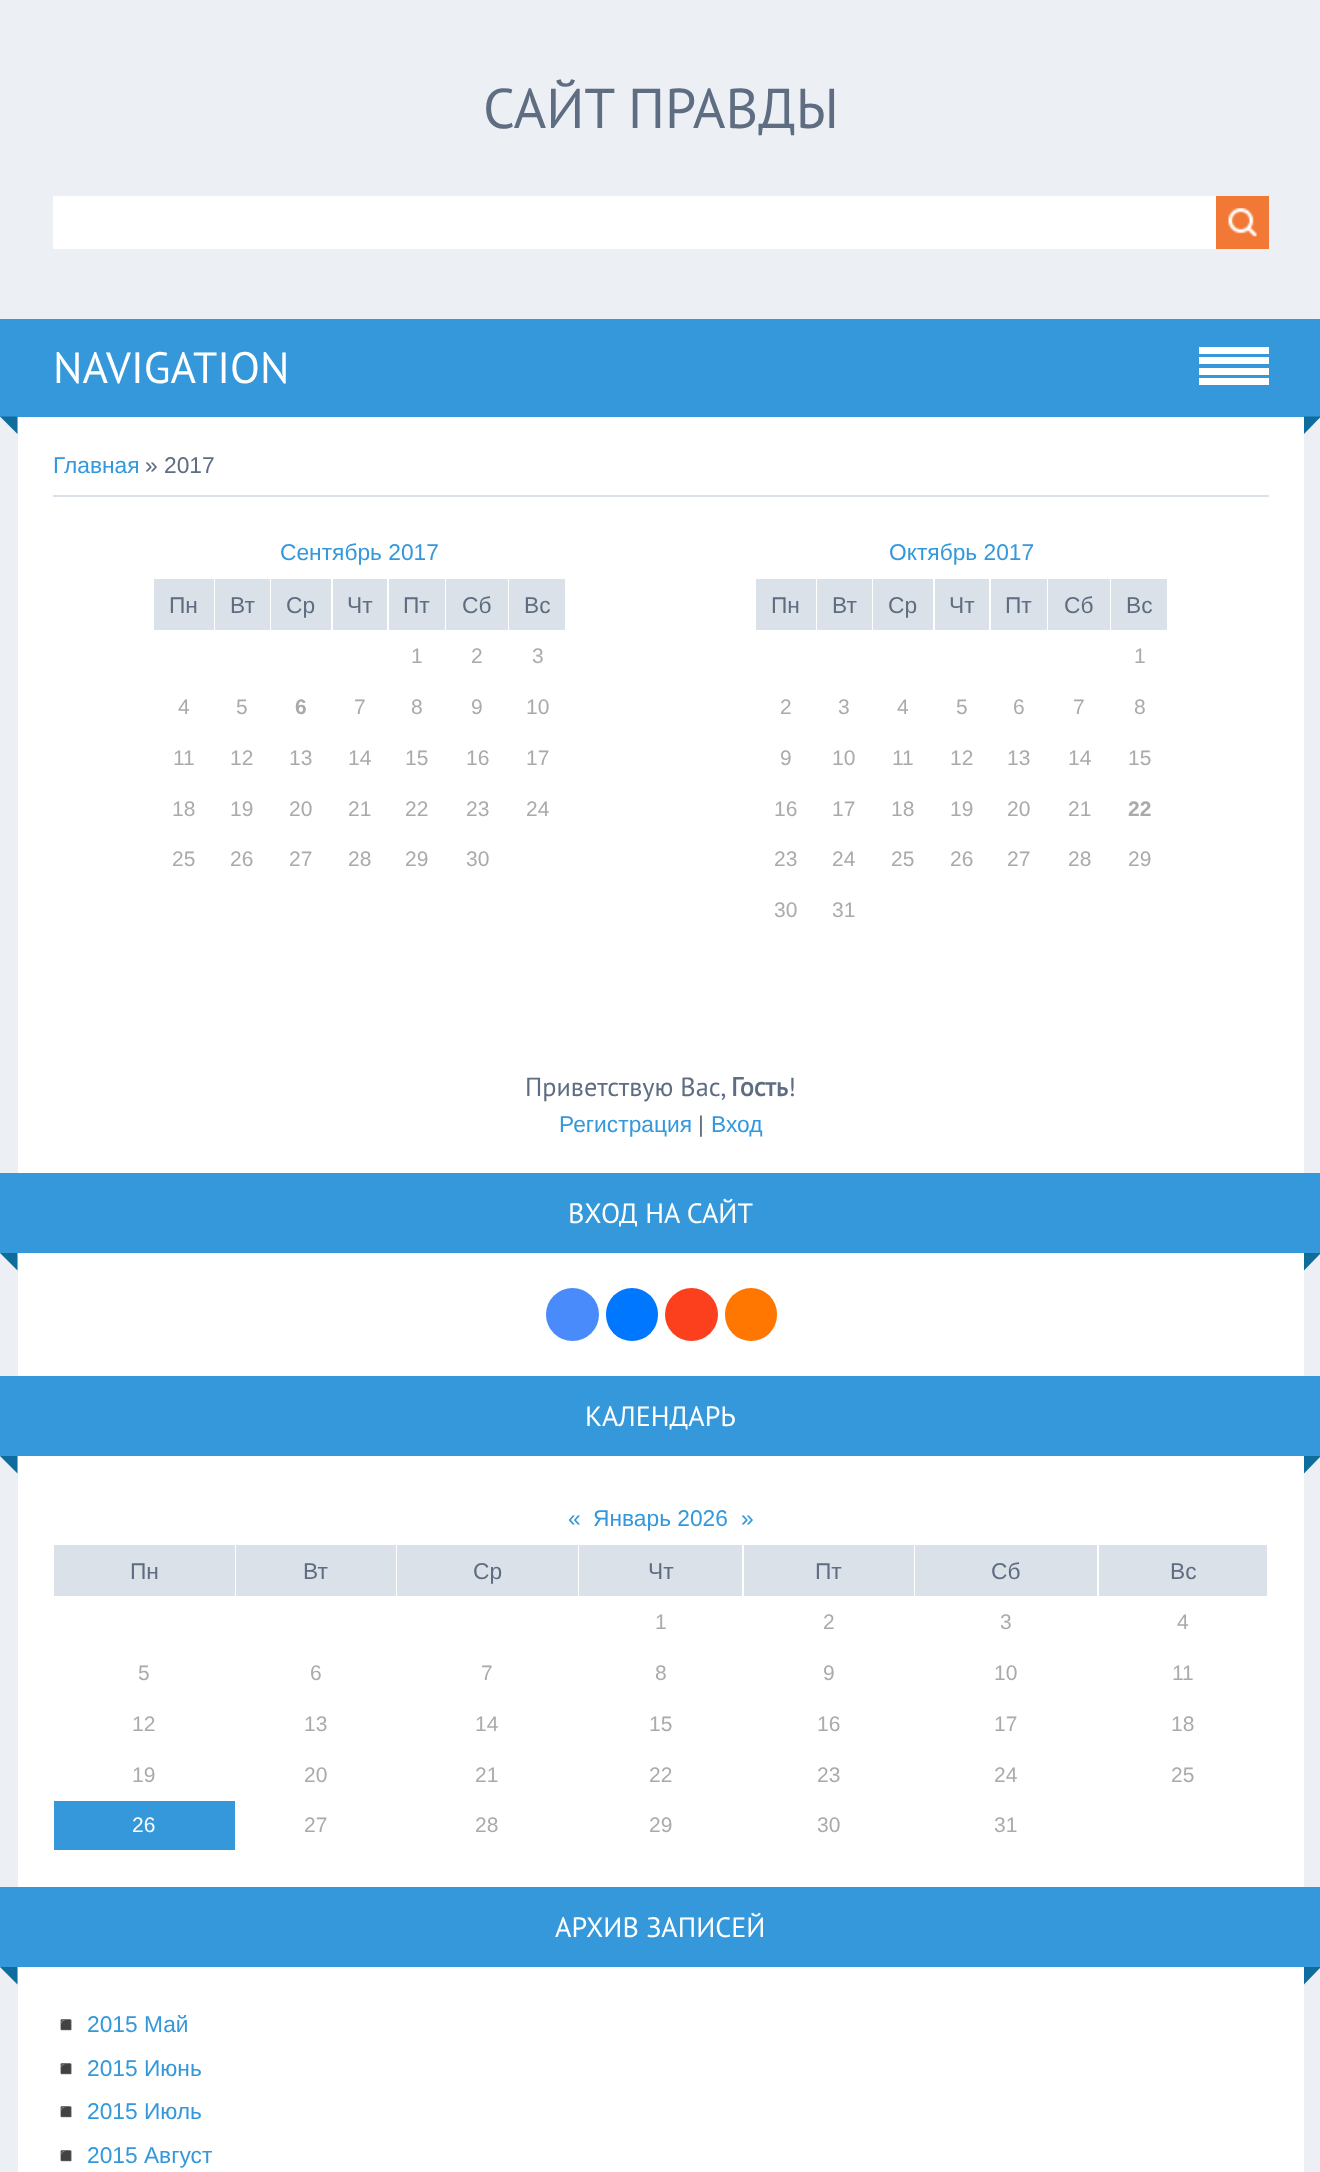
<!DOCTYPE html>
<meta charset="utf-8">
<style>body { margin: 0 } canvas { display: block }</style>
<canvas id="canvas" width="1320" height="2172"></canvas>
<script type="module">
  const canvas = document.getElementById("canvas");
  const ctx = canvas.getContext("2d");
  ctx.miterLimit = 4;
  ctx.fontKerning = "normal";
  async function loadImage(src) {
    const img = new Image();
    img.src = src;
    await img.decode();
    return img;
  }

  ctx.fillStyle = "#eceff3";
  ctx.fillRect(0, 0, 1320, 2172);
  ctx.font = "56px PT Sans";
  ctx.fillStyle = "#5e6d81";
  ctx.fillText("САЙТ ПРАВДЫ", 483, 128);
  ctx.fillStyle = "#ffffff";
  ctx.fillRect(53, 196, 1163, 53);
  ctx.fillStyle = "#f27935";
  ctx.fillRect(1216, 196, 53, 53);
  ctx.drawImage(await loadImage("img1.png"), 1228, 208, 29, 29);
  ctx.fillStyle = "#3498db";
  ctx.fillRect(0, 319, 1320, 98);
  ctx.font = "43.75px PT Sans";
  ctx.fillStyle = "#ffffff";
  ctx.fillText("NAVIGATION", 53, 383);
  ctx.fillRect(1199, 347, 70, 7);
  ctx.fillRect(1199, 357, 70, 7);
  ctx.fillRect(1199, 368, 70, 7);
  ctx.fillRect(1199, 378, 70, 7);
  ctx.fillStyle = "#0f6d9e";
  ctx.beginPath();
  ctx.moveTo(0, 416.5);
  ctx.lineTo(17.5, 416.5);
  ctx.lineTo(17.5, 434);
  ctx.closePath();
  ctx.fill();
  ctx.beginPath();
  ctx.moveTo(1304, 416.5);
  ctx.lineTo(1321, 416.5);
  ctx.lineTo(1304, 434);
  ctx.closePath();
  ctx.fill();
  ctx.fillStyle = "#ffffff";
  ctx.fillRect(18, 417, 1286, 1755);
  ctx.font = "22.75px Liberation Sans";
  ctx.fillStyle = "#3498db";
  ctx.fillText("Главная", 53, 473);
  ctx.fillStyle = "#5e6d81";
  ctx.fillText("» 2017", 145, 473);
  ctx.fillStyle = "#dbe1e8";
  ctx.fillRect(53, 495, 1216, 2);
  ctx.fillStyle = "#3498db";
  ctx.fillText("Сентябрь 2017", 280, 560);
  ctx.fillStyle = "#dbe1e8";
  ctx.fillRect(154, 579, 60, 51);
  ctx.fillStyle = "#5e6d81";
  ctx.fillText("Пн", 169, 613);
  ctx.fillStyle = "#dbe1e8";
  ctx.fillRect(215, 579, 55, 51);
  ctx.fillStyle = "#5e6d81";
  ctx.fillText("Вт", 230, 613);
  ctx.fillStyle = "#dbe1e8";
  ctx.fillRect(271, 579, 60, 51);
  ctx.fillStyle = "#5e6d81";
  ctx.fillText("Ср", 286, 613);
  ctx.fillStyle = "#dbe1e8";
  ctx.fillRect(333, 579, 54, 51);
  ctx.fillStyle = "#5e6d81";
  ctx.fillText("Чт", 347, 613);
  ctx.fillStyle = "#dbe1e8";
  ctx.fillRect(389, 579, 56, 51);
  ctx.fillStyle = "#5e6d81";
  ctx.fillText("Пт", 403, 613);
  ctx.fillStyle = "#dbe1e8";
  ctx.fillRect(446, 579, 62, 51);
  ctx.fillStyle = "#5e6d81";
  ctx.fillText("Сб", 462, 613);
  ctx.fillStyle = "#dbe1e8";
  ctx.fillRect(509, 579, 56, 51);
  ctx.fillStyle = "#5e6d81";
  ctx.fillText("Вс", 524, 613);
  ctx.font = "21px Liberation Sans";
  ctx.fillStyle = "#aaaaaa";
  ctx.fillText("1", 411, 663);
  ctx.fillText("2", 471, 663);
  ctx.fillText("3", 532, 663);
  ctx.fillText("4", 178, 714);
  ctx.fillText("5", 236, 714);
  ctx.font = "bold 21px Liberation Sans";
  ctx.fillText("6", 295, 714);
  ctx.font = "21px Liberation Sans";
  ctx.fillText("7", 354, 714);
  ctx.fillText("8", 411, 714);
  ctx.fillText("9", 471, 714);
  ctx.fillText("10", 526, 714);
  ctx.fillText("11", 173, 765);
  ctx.fillText("12", 230, 765);
  ctx.fillText("13", 289, 765);
  ctx.fillText("14", 348, 765);
  ctx.fillText("15", 405, 765);
  ctx.fillText("16", 466, 765);
  ctx.fillText("17", 526, 765);
  ctx.fillText("18", 172, 816);
  ctx.fillText("19", 230, 816);
  ctx.fillText("20", 289, 816);
  ctx.fillText("21", 348, 816);
  ctx.fillText("22", 405, 816);
  ctx.fillText("23", 466, 816);
  ctx.fillText("24", 526, 816);
  ctx.fillText("25", 172, 866);
  ctx.fillText("26", 230, 866);
  ctx.fillText("27", 289, 866);
  ctx.fillText("28", 348, 866);
  ctx.fillText("29", 405, 866);
  ctx.fillText("30", 466, 866);
  ctx.font = "22.75px Liberation Sans";
  ctx.fillStyle = "#3498db";
  ctx.fillText("Октябрь 2017", 889, 560);
  ctx.fillStyle = "#dbe1e8";
  ctx.fillRect(756, 579, 60, 51);
  ctx.fillStyle = "#5e6d81";
  ctx.fillText("Пн", 771, 613);
  ctx.fillStyle = "#dbe1e8";
  ctx.fillRect(817, 579, 55, 51);
  ctx.fillStyle = "#5e6d81";
  ctx.fillText("Вт", 832, 613);
  ctx.fillStyle = "#dbe1e8";
  ctx.fillRect(873, 579, 60, 51);
  ctx.fillStyle = "#5e6d81";
  ctx.fillText("Ср", 888, 613);
  ctx.fillStyle = "#dbe1e8";
  ctx.fillRect(935, 579, 54, 51);
  ctx.fillStyle = "#5e6d81";
  ctx.fillText("Чт", 949, 613);
  ctx.fillStyle = "#dbe1e8";
  ctx.fillRect(991, 579, 56, 51);
  ctx.fillStyle = "#5e6d81";
  ctx.fillText("Пт", 1005, 613);
  ctx.fillStyle = "#dbe1e8";
  ctx.fillRect(1048, 579, 62, 51);
  ctx.fillStyle = "#5e6d81";
  ctx.fillText("Сб", 1064, 613);
  ctx.fillStyle = "#dbe1e8";
  ctx.fillRect(1111, 579, 56, 51);
  ctx.fillStyle = "#5e6d81";
  ctx.fillText("Вс", 1126, 613);
  ctx.font = "21px Liberation Sans";
  ctx.fillStyle = "#aaaaaa";
  ctx.fillText("1", 1134, 663);
  ctx.fillText("2", 780, 714);
  ctx.fillText("3", 838, 714);
  ctx.fillText("4", 897, 714);
  ctx.fillText("5", 956, 714);
  ctx.fillText("6", 1013, 714);
  ctx.fillText("7", 1073, 714);
  ctx.fillText("8", 1134, 714);
  ctx.fillText("9", 780, 765);
  ctx.fillText("10", 832, 765);
  ctx.fillText("11", 892, 765);
  ctx.fillText("12", 950, 765);
  ctx.fillText("13", 1007, 765);
  ctx.fillText("14", 1068, 765);
  ctx.fillText("15", 1128, 765);
  ctx.fillText("16", 774, 816);
  ctx.fillText("17", 832, 816);
  ctx.fillText("18", 891, 816);
  ctx.fillText("19", 950, 816);
  ctx.fillText("20", 1007, 816);
  ctx.fillText("21", 1068, 816);
  ctx.font = "bold 21px Liberation Sans";
  ctx.fillText("22", 1128, 816);
  ctx.font = "21px Liberation Sans";
  ctx.fillText("23", 774, 866);
  ctx.fillText("24", 832, 866);
  ctx.fillText("25", 891, 866);
  ctx.fillText("26", 950, 866);
  ctx.fillText("27", 1007, 866);
  ctx.fillText("28", 1068, 866);
  ctx.fillText("29", 1128, 866);
  ctx.fillText("30", 774, 917);
  ctx.fillText("31", 832, 917);
  ctx.font = "26.25px PT Sans";
  ctx.fillStyle = "#5e6d81";
  ctx.fillText("Приветствую Вас,", 525, 1096);
  ctx.font = "bold 26.25px PT Sans";
  ctx.fillText("Гость", 731, 1096);
  ctx.font = "26.25px PT Sans";
  ctx.fillText("!", 788, 1096);
  ctx.font = "22.75px Liberation Sans";
  ctx.fillStyle = "#3498db";
  ctx.fillText("Регистрация", 559, 1132);
  ctx.fillStyle = "#5e6d81";
  ctx.fillText("|", 698, 1132);
  ctx.fillStyle = "#3498db";
  ctx.fillText("Вход", 711, 1132);
  ctx.fillRect(0, 1173, 1320, 80);
  ctx.font = "28px PT Sans";
  ctx.fillStyle = "#ffffff";
  ctx.fillText("ВХОД НА САЙТ", 568, 1223);
  ctx.fillStyle = "#0f6d9e";
  ctx.beginPath();
  ctx.moveTo(0, 1253);
  ctx.lineTo(17.5, 1253);
  ctx.lineTo(17.5, 1270.5);
  ctx.closePath();
  ctx.fill();
  ctx.beginPath();
  ctx.moveTo(1304, 1253);
  ctx.lineTo(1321, 1253);
  ctx.lineTo(1304, 1270.5);
  ctx.closePath();
  ctx.fill();
  ctx.fillStyle = "#498bfa";
  ctx.beginPath();
  ctx.arc(572.5, 1314.5, 26.5, 0, Math.PI * 2);
  ctx.fill();
  ctx.fillStyle = "#0077ff";
  ctx.beginPath();
  ctx.roundRect(606, 1288, 52, 53, 26);
  ctx.fill();
  ctx.fillStyle = "#fc3f1d";
  ctx.beginPath();
  ctx.arc(691.5, 1314.5, 26.5, 0, Math.PI * 2);
  ctx.fill();
  ctx.fillStyle = "#ff7700";
  ctx.beginPath();
  ctx.roundRect(725, 1288, 52, 53, 26);
  ctx.fill();
  ctx.fillStyle = "#3498db";
  ctx.fillRect(0, 1376, 1320, 80);
  ctx.fillStyle = "#ffffff";
  ctx.fillText("КАЛЕНДАРЬ", 585, 1426);
  ctx.fillStyle = "#0f6d9e";
  ctx.beginPath();
  ctx.moveTo(0, 1456);
  ctx.lineTo(17.5, 1456);
  ctx.lineTo(17.5, 1473.5);
  ctx.closePath();
  ctx.fill();
  ctx.beginPath();
  ctx.moveTo(1304, 1456);
  ctx.lineTo(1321, 1456);
  ctx.lineTo(1304, 1473.5);
  ctx.closePath();
  ctx.fill();
  ctx.font = "22.75px Liberation Sans";
  ctx.fillStyle = "#3498db";
  ctx.fillText("«", 568, 1526);
  ctx.fillText("Январь 2026", 593, 1526);
  ctx.fillText("»", 741, 1526);
  ctx.fillStyle = "#dbe1e8";
  ctx.fillRect(54, 1545, 181, 51);
  ctx.fillStyle = "#5e6d81";
  ctx.fillText("Пн", 130, 1579);
  ctx.fillStyle = "#dbe1e8";
  ctx.fillRect(236, 1545, 160, 51);
  ctx.fillStyle = "#5e6d81";
  ctx.fillText("Вт", 303, 1579);
  ctx.fillStyle = "#dbe1e8";
  ctx.fillRect(397, 1545, 181, 51);
  ctx.fillStyle = "#5e6d81";
  ctx.fillText("Ср", 473, 1579);
  ctx.fillStyle = "#dbe1e8";
  ctx.fillRect(579, 1545, 163, 51);
  ctx.fillStyle = "#5e6d81";
  ctx.fillText("Чт", 648, 1579);
  ctx.fillStyle = "#dbe1e8";
  ctx.fillRect(744, 1545, 170, 51);
  ctx.fillStyle = "#5e6d81";
  ctx.fillText("Пт", 815, 1579);
  ctx.fillStyle = "#dbe1e8";
  ctx.fillRect(915, 1545, 182, 51);
  ctx.fillStyle = "#5e6d81";
  ctx.fillText("Сб", 991, 1579);
  ctx.fillStyle = "#dbe1e8";
  ctx.fillRect(1099, 1545, 168, 51);
  ctx.fillStyle = "#5e6d81";
  ctx.fillText("Вс", 1170, 1579);
  ctx.font = "21px Liberation Sans";
  ctx.fillStyle = "#aaaaaa";
  ctx.fillText("1", 655, 1629);
  ctx.fillText("2", 823, 1629);
  ctx.fillText("3", 1000, 1629);
  ctx.fillText("4", 1177, 1629);
  ctx.fillText("5", 138, 1680);
  ctx.fillText("6", 310, 1680);
  ctx.fillText("7", 481, 1680);
  ctx.fillText("8", 655, 1680);
  ctx.fillText("9", 823, 1680);
  ctx.fillText("10", 994, 1680);
  ctx.fillText("11", 1172, 1680);
  ctx.fillText("12", 132, 1731);
  ctx.fillText("13", 304, 1731);
  ctx.fillText("14", 475, 1731);
  ctx.fillText("15", 649, 1731);
  ctx.fillText("16", 817, 1731);
  ctx.fillText("17", 994, 1731);
  ctx.fillText("18", 1171, 1731);
  ctx.fillText("19", 132, 1782);
  ctx.fillText("20", 304, 1782);
  ctx.fillText("21", 475, 1782);
  ctx.fillText("22", 649, 1782);
  ctx.fillText("23", 817, 1782);
  ctx.fillText("24", 994, 1782);
  ctx.fillText("25", 1171, 1782);
  ctx.fillStyle = "#3498db";
  ctx.fillRect(54, 1801, 181, 49);
  ctx.fillStyle = "#ffffff";
  ctx.fillText("26", 132, 1832);
  ctx.fillStyle = "#aaaaaa";
  ctx.fillText("27", 304, 1832);
  ctx.fillText("28", 475, 1832);
  ctx.fillText("29", 649, 1832);
  ctx.fillText("30", 817, 1832);
  ctx.fillText("31", 994, 1832);
  ctx.fillStyle = "#3498db";
  ctx.fillRect(0, 1887, 1320, 80);
  ctx.font = "28px PT Sans";
  ctx.fillStyle = "#ffffff";
  ctx.fillText("АРХИВ ЗАПИСЕЙ", 555, 1937);
  ctx.fillStyle = "#0f6d9e";
  ctx.beginPath();
  ctx.moveTo(0, 1967);
  ctx.lineTo(17.5, 1967);
  ctx.lineTo(17.5, 1984.5);
  ctx.closePath();
  ctx.fill();
  ctx.beginPath();
  ctx.moveTo(1304, 1967);
  ctx.lineTo(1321, 1967);
  ctx.lineTo(1304, 1984.5);
  ctx.closePath();
  ctx.fill();
  ctx.font = "21px Noto Color Emoji";
  ctx.fillStyle = "#dadddf";
  ctx.fillText("◾", 53, 2032);
  ctx.font = "22.75px Liberation Sans";
  ctx.fillStyle = "#3498db";
  ctx.fillText("2015 Май", 87, 2032);
  ctx.font = "21px Noto Color Emoji";
  ctx.fillStyle = "#dadddf";
  ctx.fillText("◾", 53, 2076);
  ctx.font = "22.75px Liberation Sans";
  ctx.fillStyle = "#3498db";
  ctx.fillText("2015 Июнь", 87, 2076);
  ctx.font = "21px Noto Color Emoji";
  ctx.fillStyle = "#dadddf";
  ctx.fillText("◾", 53, 2119);
  ctx.font = "22.75px Liberation Sans";
  ctx.fillStyle = "#3498db";
  ctx.fillText("2015 Июль", 87, 2119);
  ctx.font = "21px Noto Color Emoji";
  ctx.fillStyle = "#dadddf";
  ctx.fillText("◾", 53, 2163);
  ctx.font = "22.75px Liberation Sans";
  ctx.fillStyle = "#3498db";
  ctx.fillText("2015 Август", 87, 2163);
</script>
